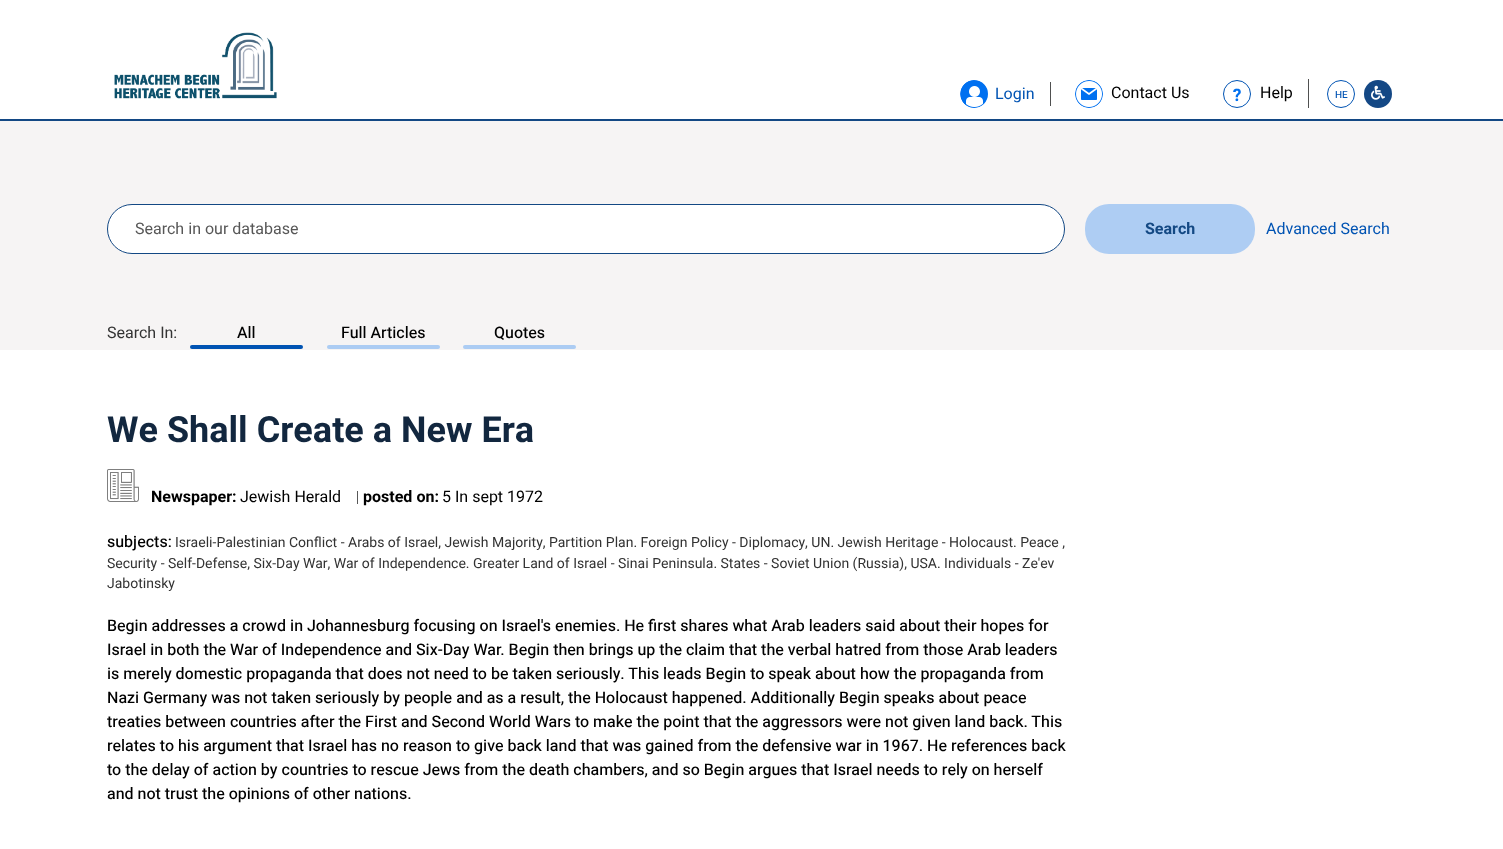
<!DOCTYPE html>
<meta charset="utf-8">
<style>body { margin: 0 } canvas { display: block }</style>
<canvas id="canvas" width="1503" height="849"></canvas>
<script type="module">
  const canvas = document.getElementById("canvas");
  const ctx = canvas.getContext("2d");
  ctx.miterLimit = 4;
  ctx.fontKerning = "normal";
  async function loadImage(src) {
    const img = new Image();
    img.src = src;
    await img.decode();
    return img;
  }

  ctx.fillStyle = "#ffffff";
  ctx.fillRect(0, 0, 1503, 849);
  ctx.drawImage(await loadImage("img1.png"), 114, 32, 163, 67);
  ctx.drawImage(await loadImage("img2.png"), 960, 80, 28, 28);
  ctx.font = "16px Heebo";
  ctx.fillStyle = "#0053b3";
  ctx.fillText("Login", 995, 99);
  ctx.fillStyle = "#4f5050";
  ctx.fillRect(1050, 82, 1, 24);
  ctx.drawImage(await loadImage("img3.png"), 1075, 80, 28, 28);
  ctx.fillStyle = "#000000";
  ctx.fillText("Contact Us", 1111, 98);
  ctx.fillStyle = "#4f5050";
  ctx.fillRect(1308, 79, 1, 29);
  ctx.drawImage(await loadImage("img4.png"), 1233, 88, 8, 14);
  ctx.beginPath();
  ctx.arc(1237, 94, 13.5, 0, Math.PI * 2);
  ctx.strokeStyle = "#0053b3";
  ctx.stroke();
  ctx.fillStyle = "#000000";
  ctx.fillText("Help", 1260, 98);
  ctx.beginPath();
  ctx.arc(1341, 94, 13.5, 0, Math.PI * 2);
  ctx.stroke();
  ctx.font = "500 10px Heebo";
  ctx.fillStyle = "#0053b3";
  ctx.fillText("HE", 1335, 98);
  ctx.fillStyle = "#144885";
  ctx.beginPath();
  ctx.arc(1378, 94, 14, 0, Math.PI * 2);
  ctx.fill();
  ctx.drawImage(await loadImage("img5.png"), 1371, 85, 14, 15);
  ctx.fillStyle = "#f6f4f4";
  ctx.fillRect(0, 121, 1503, 229);
  ctx.fillStyle = "#134884";
  ctx.fillRect(0, 119, 1503, 2);
  ctx.fillStyle = "#ffffff";
  ctx.beginPath();
  ctx.roundRect(107.5, 204.5, 957, 49, 24.5);
  ctx.fill();
  ctx.strokeStyle = "#134884";
  ctx.stroke();
  ctx.font = "16px Heebo";
  ctx.fillStyle = "#575757";
  ctx.fillText("Search in our database", 135, 234);
  ctx.fillStyle = "#aecdf3";
  ctx.beginPath();
  ctx.roundRect(1085, 204, 170, 50, 24);
  ctx.fill();
  ctx.font = "bold 16px Heebo";
  ctx.fillStyle = "#144984";
  ctx.fillText("Search", 1145, 234);
  ctx.font = "16px Heebo";
  ctx.fillStyle = "#0053b3";
  ctx.fillText("Advanced Search", 1266, 234);
  ctx.fillStyle = "#333333";
  ctx.fillText("Search In:", 107, 338);
  ctx.font = "500 16px Heebo";
  ctx.fillStyle = "#000000";
  ctx.fillText("All", 237, 338);
  ctx.fillStyle = "#0053b3";
  ctx.beginPath();
  ctx.roundRect(190, 345, 113, 4, 2);
  ctx.fill();
  ctx.fillStyle = "#000000";
  ctx.fillText("Full Articles", 341, 338);
  ctx.fillStyle = "#acccf3";
  ctx.beginPath();
  ctx.roundRect(327, 345, 113, 4, 2);
  ctx.fill();
  ctx.fillStyle = "#000000";
  ctx.fillText("Quotes", 494, 338);
  ctx.fillStyle = "#acccf3";
  ctx.beginPath();
  ctx.roundRect(463, 345, 113, 4, 2);
  ctx.fill();
  ctx.font = "bold 36px Heebo";
  ctx.fillStyle = "#12273f";
  ctx.fillText("We Shall Create a New Era", 107, 442);
  ctx.drawImage(await loadImage("img6.png"), 107, 469, 32, 33);
  ctx.font = "bold 16px Heebo";
  ctx.fillStyle = "#000000";
  ctx.fillText("Newspaper:", 151, 502);
  ctx.font = "16px Heebo";
  ctx.fillText("Jewish Herald", 240, 502);
  ctx.fillStyle = "#575757";
  ctx.fillRect(357, 491, 1, 13);
  ctx.font = "bold 16px Heebo";
  ctx.fillStyle = "#000000";
  ctx.fillText("posted on:", 363, 502);
  ctx.font = "16px Heebo";
  ctx.fillText("5 In sept 1972", 442, 502);
  ctx.font = "500 16px Heebo";
  ctx.fillText("subjects:", 107, 547);
  ctx.font = "14px Heebo";
  ctx.fillStyle = "#333333";
  ctx.fillText("Israeli-Palestinian Conflict - Arabs of Israel, Jewish Majority, Partition Plan. Foreign Policy - Diplomacy, UN. Jewish Heritage - Holocaust. Peace ,", 175, 547);
  ctx.fillText("Security - Self-Defense, Six-Day War, War of Independence. Greater Land of Israel - Sinai Peninsula. States - Soviet Union (Russia), USA. Individuals - Ze'ev", 107, 568);
  ctx.fillText("Jabotinsky", 107, 588);
  ctx.font = "500 16px Heebo";
  ctx.fillStyle = "#000000";
  ctx.fillText("Begin addresses a crowd in Johannesburg focusing on Israel's enemies. He first shares what Arab leaders said about their hopes for", 107, 631);
  ctx.fillText("Israel in both the War of Independence and Six-Day War. Begin then brings up the claim that the verbal hatred from those Arab leaders", 107, 655);
  ctx.fillText("is merely domestic propaganda that does not need to be taken seriously. This leads Begin to speak about how the propaganda from", 107, 679);
  ctx.fillText("Nazi Germany was not taken seriously by people and as a result, the Holocaust happened. Additionally Begin speaks about peace", 107, 703);
  ctx.fillText("treaties between countries after the First and Second World Wars to make the point that the aggressors were not given land back. This", 107, 727);
  ctx.fillText("relates to his argument that Israel has no reason to give back land that was gained from the defensive war in 1967. He references back", 107, 751);
  ctx.fillText("to the delay of action by countries to rescue Jews from the death chambers, and so Begin argues that Israel needs to rely on herself", 107, 775);
  ctx.fillText("and not trust the opinions of other nations.", 107, 799);
</script>
